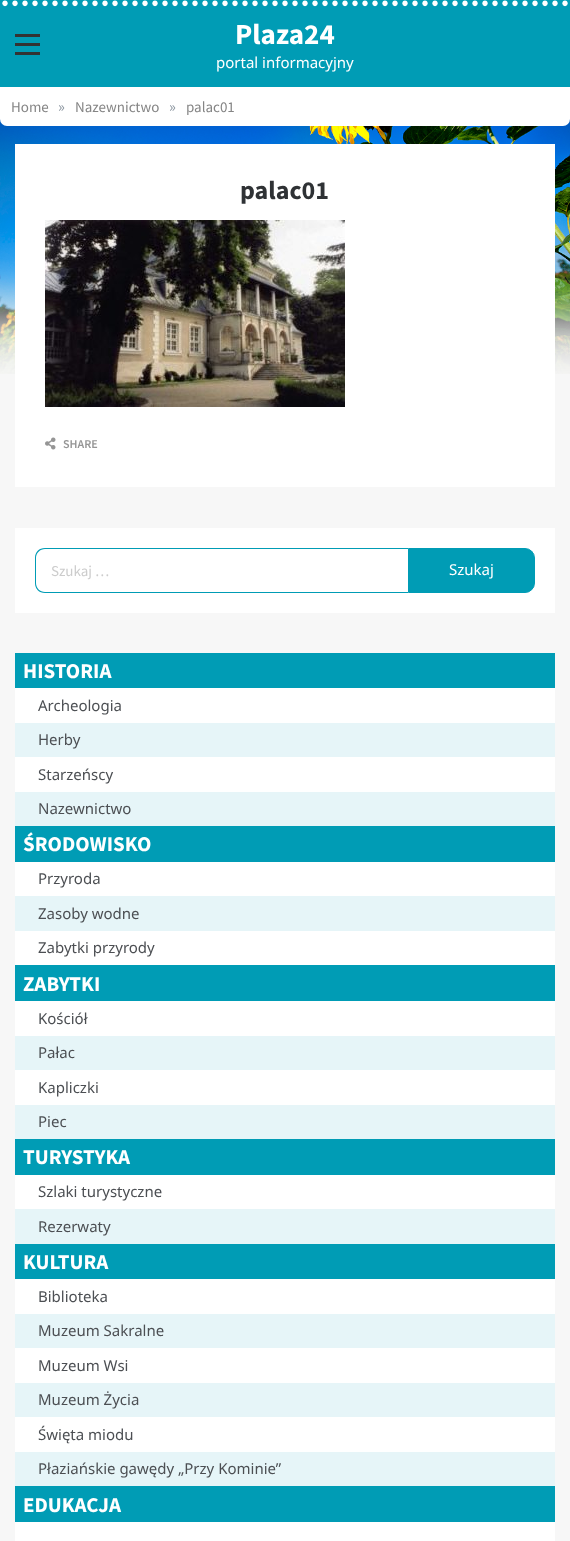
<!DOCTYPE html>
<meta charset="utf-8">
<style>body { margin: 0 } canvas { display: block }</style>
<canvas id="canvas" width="570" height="1541"></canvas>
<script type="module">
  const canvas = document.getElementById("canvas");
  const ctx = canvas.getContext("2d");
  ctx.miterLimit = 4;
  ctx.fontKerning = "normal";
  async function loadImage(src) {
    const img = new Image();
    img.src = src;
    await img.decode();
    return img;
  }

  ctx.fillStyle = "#f7f7f7";
  ctx.fillRect(0, 0, 570, 1541);
  ctx.drawImage(await loadImage("img1.png"), 0, 119, 570, 255);
  ctx.fillStyle = "#009cb5";
  ctx.fillRect(0, 0, 570, 87);
  ctx.drawImage(await loadImage("img2.png"), 2, 0, 566, 7);
  ctx.fillStyle = "#333333";
  ctx.fillRect(15, 34, 25, 3);
  ctx.fillRect(15, 43, 25, 3);
  ctx.fillRect(15, 52, 25, 3);
  ctx.font = "bold 29px Source Sans Pro";
  ctx.fillStyle = "#ffffff";
  ctx.fillText("Plaza24", 235, 44);
  ctx.font = "15px Noto Sans";
  ctx.fillText("portal informacyjny", 216, 68);
  ctx.beginPath();
  ctx.roundRect(0, 87, 570, 39, [0, 0, 7, 7]);
  ctx.fill();
  ctx.font = "15px Source Sans Pro";
  ctx.fillStyle = "#858585";
  ctx.fillText("Home", 11, 112);
  ctx.font = "16px Source Sans Pro";
  ctx.fillStyle = "#8d97a1";
  ctx.fillText("»", 58, 112);
  ctx.font = "15px Source Sans Pro";
  ctx.fillStyle = "#858585";
  ctx.fillText("Nazewnictwo", 75, 112);
  ctx.font = "16px Source Sans Pro";
  ctx.fillStyle = "#8d97a1";
  ctx.fillText("»", 169, 112);
  ctx.font = "15px Source Sans Pro";
  ctx.fillStyle = "#858585";
  ctx.fillText("palac01", 186, 112);
  ctx.fillStyle = "#ffffff";
  ctx.fillRect(15, 144, 540, 343);
  ctx.font = "bold 26px Source Sans Pro";
  ctx.fillStyle = "#2f3235";
  ctx.fillText("palac01", 240, 199);
  ctx.drawImage(await loadImage("img3.png"), 45, 220, 300, 187);
  ctx.drawImage(await loadImage("img4.png"), 45, 437, 11, 13);
  ctx.font = "600 12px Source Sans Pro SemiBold";
  ctx.fillStyle = "#959595";
  ctx.fillText("SHARE", 63, 448);
  ctx.fillStyle = "#ffffff";
  ctx.fillRect(15, 528, 540, 85);
  ctx.fillStyle = "#009cb5";
  ctx.beginPath();
  ctx.moveTo(45, 548);
  ctx.lineTo(408, 548);
  ctx.lineTo(408, 593);
  ctx.lineTo(45, 593);
  ctx.bezierCurveTo(39, 593, 35, 589, 35, 583);
  ctx.lineTo(35, 558);
  ctx.bezierCurveTo(35, 552, 39, 548, 45, 548);
  ctx.closePath();
  ctx.moveTo(45, 549);
  ctx.lineTo(408, 549);
  ctx.lineTo(408, 592);
  ctx.lineTo(45, 592);
  ctx.bezierCurveTo(40, 592, 36, 588, 36, 583);
  ctx.lineTo(36, 558);
  ctx.bezierCurveTo(36, 553, 40, 549, 45, 549);
  ctx.closePath();
  ctx.fill("evenodd");
  ctx.font = "15px Source Sans Pro";
  ctx.fillStyle = "#cccccc";
  ctx.fillText("Szukaj …", 51, 576);
  ctx.fillStyle = "#009cb5";
  ctx.beginPath();
  ctx.roundRect(408.5, 548.5, 126, 44, [0, 9.5, 9.5, 0]);
  ctx.fill();
  ctx.strokeStyle = "#009cb5";
  ctx.stroke();
  ctx.font = "15px Noto Sans";
  ctx.fillStyle = "#ffffff";
  ctx.fillText("Szukaj", 449, 575);
  ctx.fillRect(15, 688, 540, 104);
  ctx.fillStyle = "#009cb5";
  ctx.fillRect(15, 653, 540, 35);
  ctx.font = "bold 21px Source Sans Pro";
  ctx.fillStyle = "#ffffff";
  ctx.fillText("HISTORIA", 23, 678);
  ctx.font = "15px Noto Sans";
  ctx.fillStyle = "#4c4f53";
  ctx.fillText("Archeologia", 38, 711);
  ctx.fillStyle = "#e6f5f8";
  ctx.fillRect(15, 723, 540, 34);
  ctx.fillStyle = "#4c4f53";
  ctx.fillText("Herby", 38, 745);
  ctx.fillText("Starzeńscy", 38, 780);
  ctx.fillStyle = "#e6f5f8";
  ctx.fillRect(15, 792, 540, 34);
  ctx.fillStyle = "#4c4f53";
  ctx.fillText("Nazewnictwo", 38, 814);
  ctx.fillStyle = "#ffffff";
  ctx.fillRect(15, 862, 540, 103);
  ctx.fillStyle = "#009cb5";
  ctx.fillRect(15, 826, 540, 36);
  ctx.font = "bold 21px Source Sans Pro";
  ctx.fillStyle = "#ffffff";
  ctx.fillText("ŚRODOWISKO", 23, 851);
  ctx.font = "15px Noto Sans";
  ctx.fillStyle = "#4c4f53";
  ctx.fillText("Przyroda", 38, 884);
  ctx.fillStyle = "#e6f5f8";
  ctx.fillRect(15, 896, 540, 35);
  ctx.fillStyle = "#4c4f53";
  ctx.fillText("Zasoby wodne", 38, 919);
  ctx.fillText("Zabytki przyrody", 38, 953);
  ctx.fillStyle = "#ffffff";
  ctx.fillRect(15, 1001, 540, 104);
  ctx.fillStyle = "#009cb5";
  ctx.fillRect(15, 965, 540, 36);
  ctx.font = "bold 21px Source Sans Pro";
  ctx.fillStyle = "#ffffff";
  ctx.fillText("ZABYTKI", 23, 991);
  ctx.font = "15px Noto Sans";
  ctx.fillStyle = "#4c4f53";
  ctx.fillText("Kościół", 38, 1024);
  ctx.fillStyle = "#e6f5f8";
  ctx.fillRect(15, 1036, 540, 34);
  ctx.fillStyle = "#4c4f53";
  ctx.fillText("Pałac", 38, 1058);
  ctx.fillText("Kapliczki", 38, 1093);
  ctx.fillStyle = "#e6f5f8";
  ctx.fillRect(15, 1105, 540, 34);
  ctx.fillStyle = "#4c4f53";
  ctx.fillText("Piec", 38, 1127);
  ctx.fillStyle = "#ffffff";
  ctx.fillRect(15, 1175, 540, 34);
  ctx.fillStyle = "#009cb5";
  ctx.fillRect(15, 1139, 540, 36);
  ctx.font = "bold 21px Source Sans Pro";
  ctx.fillStyle = "#ffffff";
  ctx.fillText("TURYSTYKA", 23, 1164);
  ctx.font = "15px Noto Sans";
  ctx.fillStyle = "#4c4f53";
  ctx.fillText("Szlaki turystyczne", 38, 1197);
  ctx.fillStyle = "#e6f5f8";
  ctx.fillRect(15, 1209, 540, 35);
  ctx.fillStyle = "#4c4f53";
  ctx.fillText("Rezerwaty", 38, 1232);
  ctx.fillStyle = "#ffffff";
  ctx.fillRect(15, 1279, 540, 173);
  ctx.fillStyle = "#009cb5";
  ctx.fillRect(15, 1244, 540, 35);
  ctx.font = "bold 21px Source Sans Pro";
  ctx.fillStyle = "#ffffff";
  ctx.fillText("KULTURA", 23, 1269);
  ctx.font = "15px Noto Sans";
  ctx.fillStyle = "#4c4f53";
  ctx.fillText("Biblioteka", 38, 1302);
  ctx.fillStyle = "#e6f5f8";
  ctx.fillRect(15, 1314, 540, 34);
  ctx.fillStyle = "#4c4f53";
  ctx.fillText("Muzeum Sakralne", 38, 1336);
  ctx.fillText("Muzeum Wsi", 38, 1371);
  ctx.fillStyle = "#e6f5f8";
  ctx.fillRect(15, 1383, 540, 34);
  ctx.fillStyle = "#4c4f53";
  ctx.fillText("Muzeum Życia", 38, 1405);
  ctx.fillText("Święta miodu", 38, 1440);
  ctx.fillStyle = "#e6f5f8";
  ctx.fillRect(15, 1452, 540, 34);
  ctx.fillStyle = "#4c4f53";
  ctx.fillText("Płaziańskie gawędy „Przy Kominie”", 38, 1474);
  ctx.fillStyle = "#ffffff";
  ctx.fillRect(15, 1522, 540, 19);
  ctx.fillStyle = "#009cb5";
  ctx.fillRect(15, 1486, 540, 36);
  ctx.font = "bold 21px Source Sans Pro";
  ctx.fillStyle = "#ffffff";
  ctx.fillText("EDUKACJA", 23, 1512);
</script>
